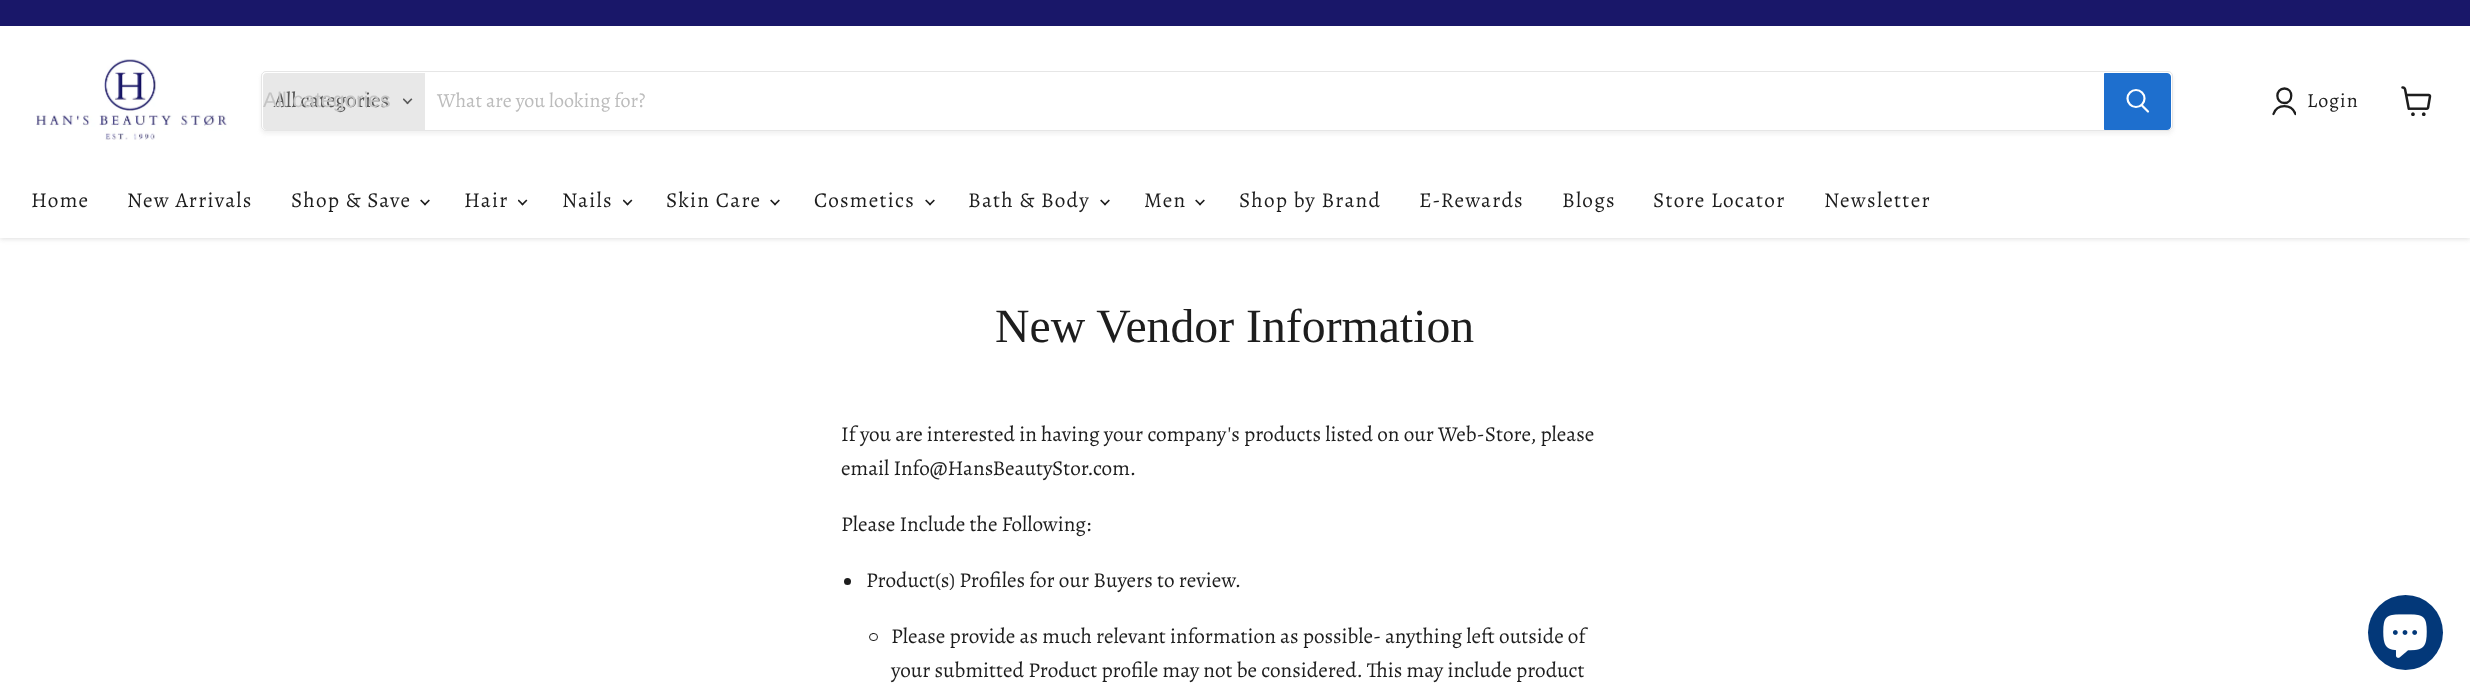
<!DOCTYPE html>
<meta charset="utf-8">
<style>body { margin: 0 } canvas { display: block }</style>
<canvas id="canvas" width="2470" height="696"></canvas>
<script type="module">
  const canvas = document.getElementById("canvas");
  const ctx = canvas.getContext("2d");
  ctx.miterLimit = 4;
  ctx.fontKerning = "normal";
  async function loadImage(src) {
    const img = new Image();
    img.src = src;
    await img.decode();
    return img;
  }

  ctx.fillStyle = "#ffffff";
  ctx.fillRect(0, 0, 2470, 696);
  ctx.fillStyle = "rgba(128, 128, 128, 0.25)";
  ctx.filter = "blur(2.5px)";
  ctx.beginPath();
  ctx.rect(0, 28, 2470, 211);
  ctx.fill();
  ctx.filter = "none";
  ctx.fillStyle = "#191769";
  ctx.fillRect(0, 0, 2470, 26);
  ctx.fillStyle = "#ffffff";
  ctx.fillRect(0, 26, 2470, 212);
  ctx.drawImage(await loadImage("img1.png"), 36, 59, 191, 81);
  ctx.save();
  ctx.beginPath();
  ctx.moveTo(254, 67);
  ctx.lineTo(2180, 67);
  ctx.lineTo(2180, 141);
  ctx.lineTo(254, 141);
  ctx.closePath();
  ctx.moveTo(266, 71);
  ctx.lineTo(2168, 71);
  ctx.bezierCurveTo(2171, 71, 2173, 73, 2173, 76);
  ctx.lineTo(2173, 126);
  ctx.bezierCurveTo(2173, 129, 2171, 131, 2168, 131);
  ctx.lineTo(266, 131);
  ctx.bezierCurveTo(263, 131, 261, 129, 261, 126);
  ctx.lineTo(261, 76);
  ctx.bezierCurveTo(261, 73, 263, 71, 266, 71);
  ctx.closePath();
  ctx.clip("evenodd");
  ctx.fillStyle = "rgba(128, 128, 128, 0.11)";
  ctx.filter = "blur(2px)";
  ctx.beginPath();
  ctx.roundRect(261, 74, 1912, 60, 5);
  ctx.fill();
  ctx.filter = "none";
  ctx.restore();
  ctx.beginPath();
  ctx.roundRect(261.5, 71.5, 1911, 59, 4.5);
  ctx.strokeStyle = "rgba(128, 128, 128, 0.2)";
  ctx.stroke();
  ctx.fillStyle = "#e8e8e8";
  ctx.beginPath();
  ctx.roundRect(263, 73, 162, 57, [4, 0, 0, 4]);
  ctx.fill();
  ctx.font = "21.25px Alegreya";
  ctx.fillStyle = "#585858";
  ctx.fillText("All categories", 274, 107);
  ctx.font = "21.25px Liberation Sans";
  ctx.fillStyle = "#c4c4c4";
  ctx.fillText("All categories", 263, 107);
  ctx.drawImage(await loadImage("img2.png"), 403, 98, 10, 7);
  ctx.font = "20px Alegreya";
  ctx.fillStyle = "#bcbcbc";
  ctx.fillText("What are you looking for?", 437, 107);
  ctx.fillStyle = "#1e6fce";
  ctx.beginPath();
  ctx.roundRect(2104.5, 73.5, 66, 56, [0, 3.5, 3.5, 0]);
  ctx.fill();
  ctx.strokeStyle = "#1e6fce";
  ctx.stroke();
  ctx.beginPath();
  ctx.moveTo(2148, 111.5);
  ctx.lineTo(2142, 105.5);
  ctx.strokeStyle = "#ffffff";
  ctx.lineWidth = 2.2;
  ctx.lineCap = "round";
  ctx.stroke();
  ctx.beginPath();
  ctx.arc(2136, 98.5, 8.5, 0, Math.PI * 2);
  ctx.stroke();
  ctx.beginPath();
  ctx.moveTo(2284.5, 103);
  ctx.bezierCurveTo(2293.5, 103, 2293.5, 88.5, 2284.5, 88.5);
  ctx.bezierCurveTo(2275, 88.5, 2275, 103, 2284.5, 103);
  ctx.closePath();
  ctx.strokeStyle = "#1d1d1d";
  ctx.lineWidth = 2.3;
  ctx.lineJoin = "round";
  ctx.stroke();
  ctx.save();
  ctx.beginPath();
  ctx.rect(2271, 86, 25, 30);
  ctx.clip();
  ctx.beginPath();
  ctx.moveTo(2295.5, 114);
  ctx.bezierCurveTo(2291.5, 103.5, 2277, 103.5, 2273.5, 114);
  ctx.stroke();
  ctx.restore();
  ctx.letterSpacing = "1px";
  ctx.fillStyle = "#1d1d1d";
  ctx.fillText("Login", 2307, 107);
  ctx.drawImage(await loadImage("img3.png"), 2401, 86, 31, 30);
  ctx.letterSpacing = "1.25px";
  ctx.font = "21.25px Alegreya";
  ctx.fillText("Home", 31, 207);
  ctx.fillText("New Arrivals", 127, 207);
  ctx.fillText("Shop & Save", 291, 207);
  ctx.drawImage(await loadImage("img4.png"), 420, 199, 10, 7);
  ctx.fillText("Hair", 464, 207);
  ctx.drawImage(await loadImage("img5.png"), 518, 199, 10, 7);
  ctx.fillText("Nails", 562, 207);
  ctx.drawImage(await loadImage("img5.png"), 623, 199, 10, 7);
  ctx.fillText("Skin Care", 666, 207);
  ctx.drawImage(await loadImage("img4.png"), 770, 199, 10, 7);
  ctx.fillText("Cosmetics", 814, 207);
  ctx.drawImage(await loadImage("img4.png"), 925, 199, 10, 7);
  ctx.fillText("Bath & Body", 968, 207);
  ctx.drawImage(await loadImage("img4.png"), 1100, 199, 10, 7);
  ctx.fillText("Men", 1144, 207);
  ctx.drawImage(await loadImage("img4.png"), 1195, 199, 10, 7);
  ctx.fillText("Shop by Brand", 1239, 207);
  ctx.fillText("E-Rewards", 1419, 207);
  ctx.fillText("Blogs", 1562, 207);
  ctx.fillText("Store Locator", 1653, 207);
  ctx.fillText("Newsletter", 1824, 207);
  ctx.letterSpacing = "0px";
  ctx.font = "47.75px Liberation Serif";
  ctx.fillText("New Vendor Information", 995, 342);
  ctx.font = "21.25px Alegreya";
  ctx.fillText("If you are interested in having your company's products listed on our Web-Store, please", 841, 441);
  ctx.fillText("email Info@HansBeautyStor.com.", 841, 475);
  ctx.fillText("Please Include the Following:", 841, 531);
  ctx.beginPath();
  ctx.arc(847.5, 581.5, 3.5, 0, Math.PI * 2);
  ctx.fill();
  ctx.fillText("Product(s) Profiles for our Buyers to review.", 866, 587);
  ctx.beginPath();
  ctx.roundRect(869.5, 633.5, 8, 7, 3.5);
  ctx.lineWidth = 1;
  ctx.lineJoin = "miter";
  ctx.stroke();
  ctx.fillText("Please provide as much relevant information as possible- anything left outside of", 891, 643);
  ctx.fillText("your submitted Product profile may not be considered. This may include product", 891, 677);
  ctx.fillStyle = "#033879";
  ctx.beginPath();
  ctx.arc(2405.5, 632.5, 37.5, 0, Math.PI * 2);
  ctx.fill();
  ctx.drawImage(await loadImage("img6.png"), 2383, 614, 44, 44);
</script>
